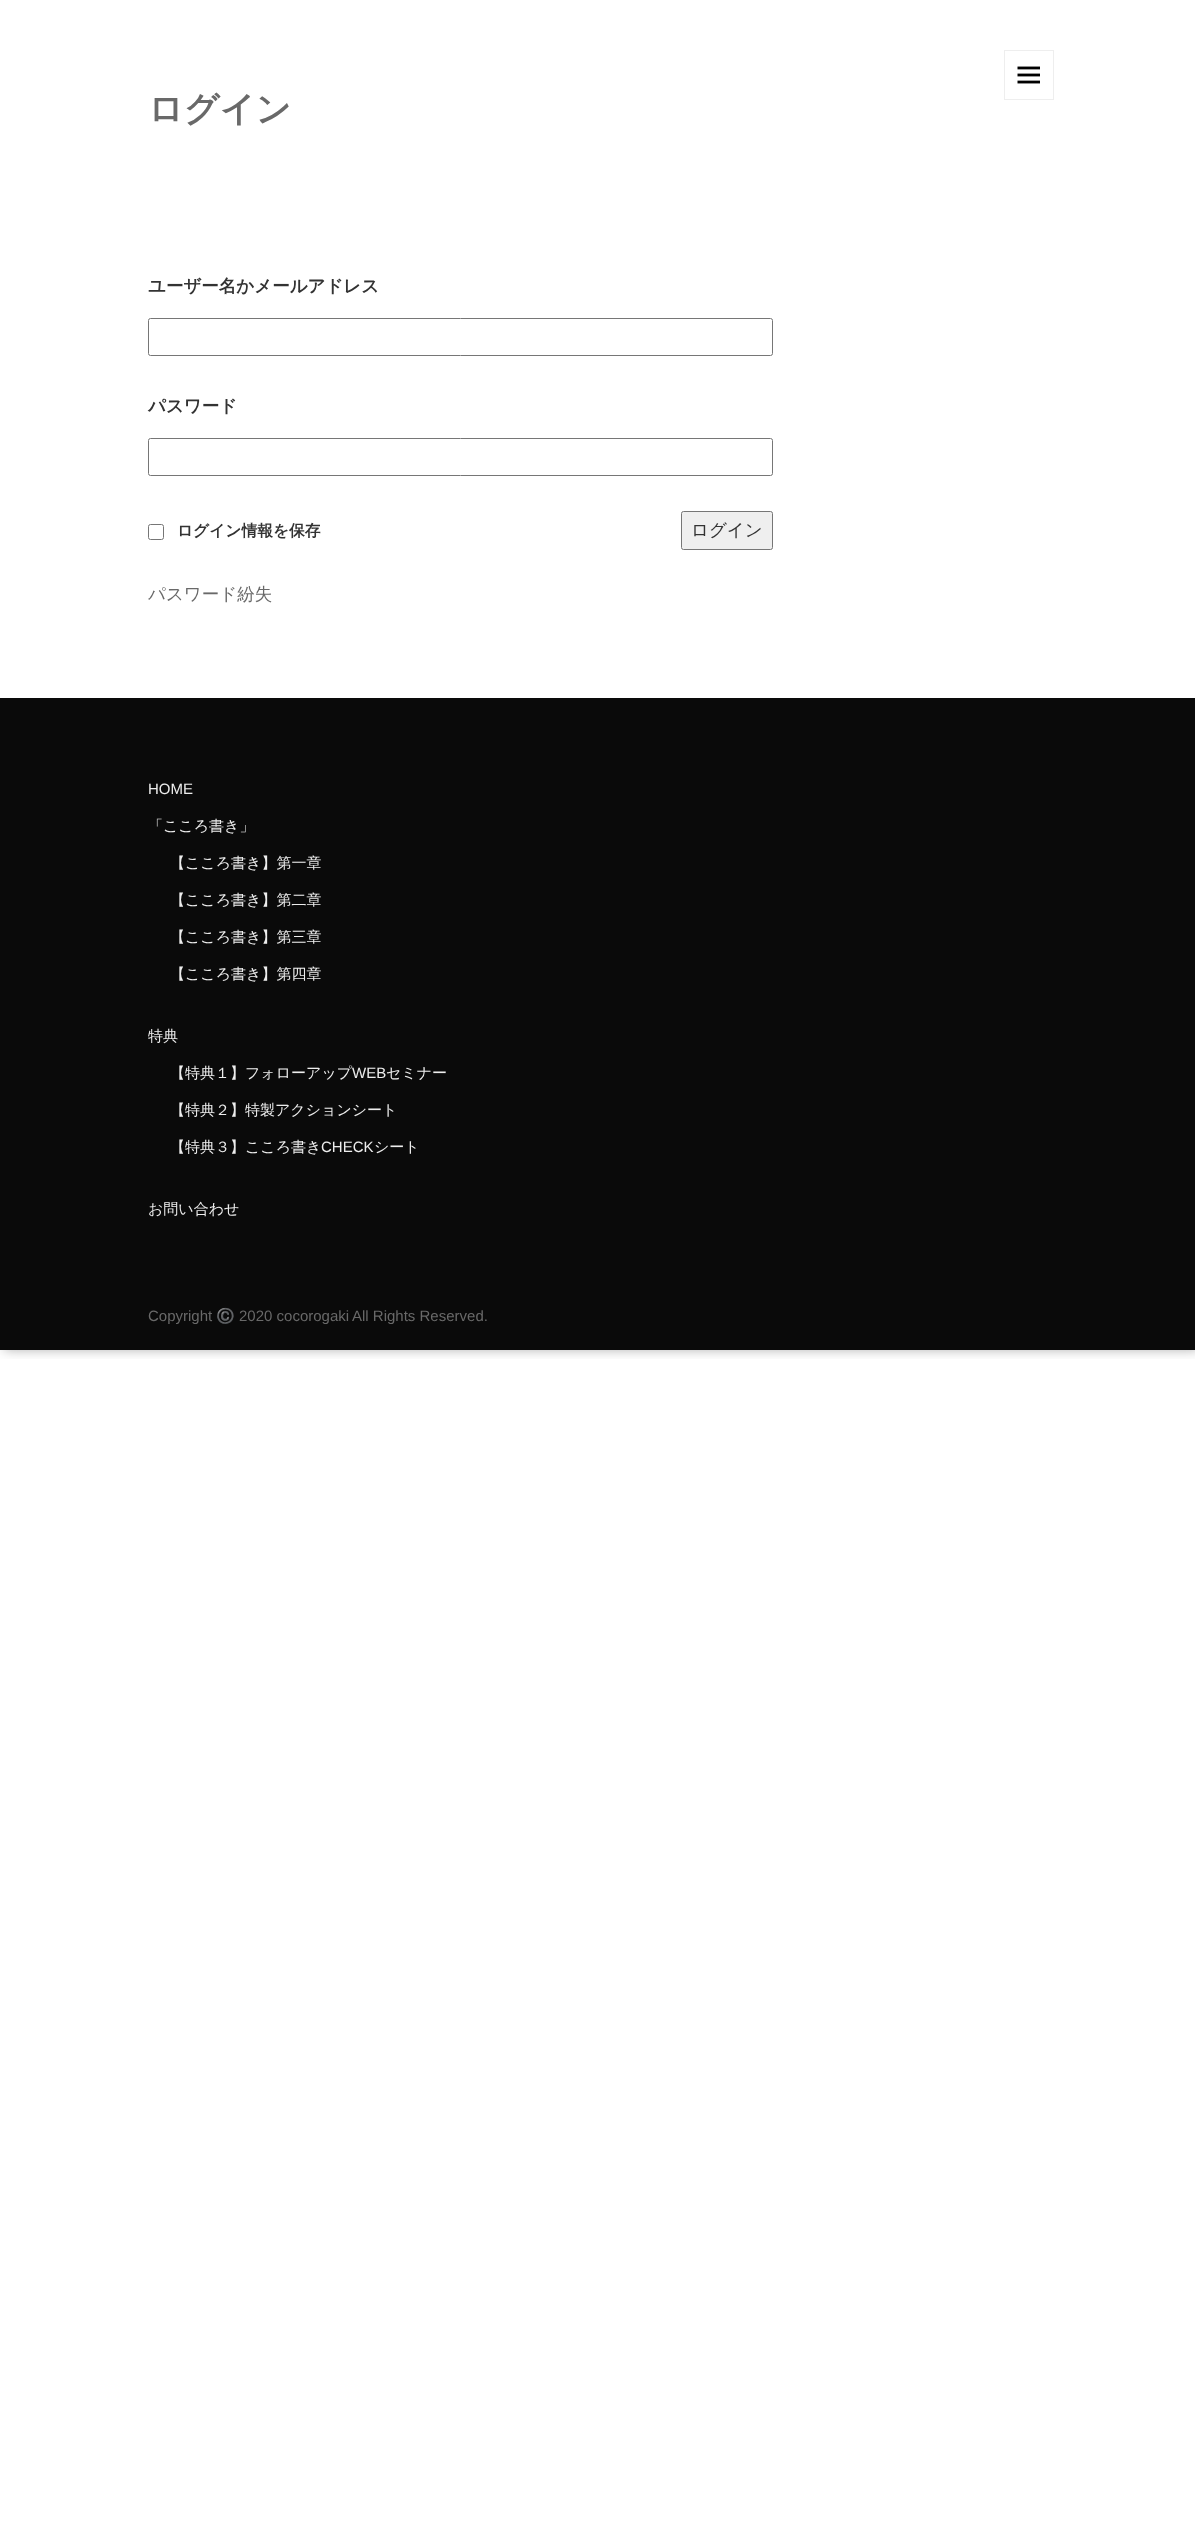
<!DOCTYPE html>
<meta charset="utf-8">
<style>body { margin: 0 } canvas { display: block }</style>
<canvas id="canvas" width="1195" height="2533"></canvas>
<script type="module">
  const canvas = document.getElementById("canvas");
  const ctx = canvas.getContext("2d");
  ctx.miterLimit = 4;
  ctx.fontKerning = "normal";
  async function loadImage(src) {
    const img = new Image();
    img.src = src;
    await img.decode();
    return img;
  }

  ctx.fillStyle = "#ffffff";
  ctx.fillRect(0, 0, 1195, 2533);
  ctx.save();
  ctx.beginPath();
  ctx.rect(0, 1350, 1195, 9);
  ctx.clip();
  ctx.fillStyle = "rgba(0, 0, 0, 0.3)";
  ctx.filter = "blur(6px)";
  ctx.beginPath();
  ctx.rect(4, 0, 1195, 1350);
  ctx.fill();
  ctx.filter = "none";
  ctx.restore();
  ctx.strokeStyle = "#eeeeee";
  ctx.strokeRect(1004.5, 50.5, 49, 49);
  ctx.drawImage(await loadImage("img1.png"), 1017, 66, 23, 18);
  ctx.font = "bold 35px WenQuanYi Zen Hei";
  ctx.fillStyle = "#696969";
  ctx.fillText("ログイン", 148, 121);
  ctx.font = "bold 17.5px WenQuanYi Zen Hei";
  ctx.fillStyle = "#333333";
  ctx.fillText("ユーザー名かメールアドレス", 148, 292);
  ctx.beginPath();
  ctx.roundRect(148.5, 318.5, 624, 37, 2);
  ctx.strokeStyle = "#767676";
  ctx.stroke();
  ctx.fillText("パスワード", 148, 412);
  ctx.beginPath();
  ctx.roundRect(148.5, 438.5, 624, 37, 2);
  ctx.stroke();
  ctx.beginPath();
  ctx.roundRect(148.5, 524.5, 15, 15, 2);
  ctx.stroke();
  ctx.font = "bold 15.75px WenQuanYi Zen Hei";
  ctx.fillText("ログイン情報を保存", 177, 536);
  ctx.fillStyle = "#efefef";
  ctx.beginPath();
  ctx.roundRect(681.5, 511.5, 91, 38, 2);
  ctx.fill();
  ctx.stroke();
  ctx.font = "500 17.5px WenQuanYi Zen Hei";
  ctx.fillStyle = "#333333";
  ctx.fillText("ログイン", 691, 536);
  ctx.fillStyle = "#696969";
  ctx.fillText("パスワード紛失", 148, 600);
  ctx.fillStyle = "#0a0a0a";
  ctx.fillRect(0, 698, 1195, 652);
  ctx.font = "15px Liberation Sans";
  ctx.fillStyle = "#ededed";
  ctx.fillText("HOME", 148, 794);
  ctx.font = "500 15px WenQuanYi Zen Hei";
  ctx.fillText("「こころ書き」", 148, 831);
  ctx.fillText("【こころ書き】第一章", 170, 868);
  ctx.fillText("【こころ書き】第二章", 170, 905);
  ctx.fillText("【こころ書き】第三章", 170, 942);
  ctx.fillText("【こころ書き】第四章", 170, 979);
  ctx.fillText("特典", 148, 1041);
  ctx.fillText("【特典１】フォローアップ", 170, 1078);
  ctx.font = "15px Liberation Sans";
  ctx.fillText("WEB", 352, 1078);
  ctx.font = "500 15px WenQuanYi Zen Hei";
  ctx.fillText("セミナー", 386, 1078);
  ctx.fillText("【特典２】特製アクションシート", 170, 1115);
  ctx.fillText("【特典３】こころ書き", 170, 1152);
  ctx.font = "15px Liberation Sans";
  ctx.fillText("CHECK", 321, 1152);
  ctx.font = "500 15px WenQuanYi Zen Hei";
  ctx.fillText("シート", 374, 1152);
  ctx.fillText("お問い合わせ", 148, 1214);
  ctx.font = "15px Liberation Sans";
  ctx.fillStyle = "#696969";
  ctx.fillText("Copyright", 148, 1321);
  ctx.font = "15px Noto Color Emoji";
  ctx.fillText("©️", 216, 1321);
  ctx.font = "15px Liberation Sans";
  ctx.fillText("2020 cocorogaki", 239, 1321);
  ctx.fillText("All Rights Reserved.", 352, 1321);
</script>
